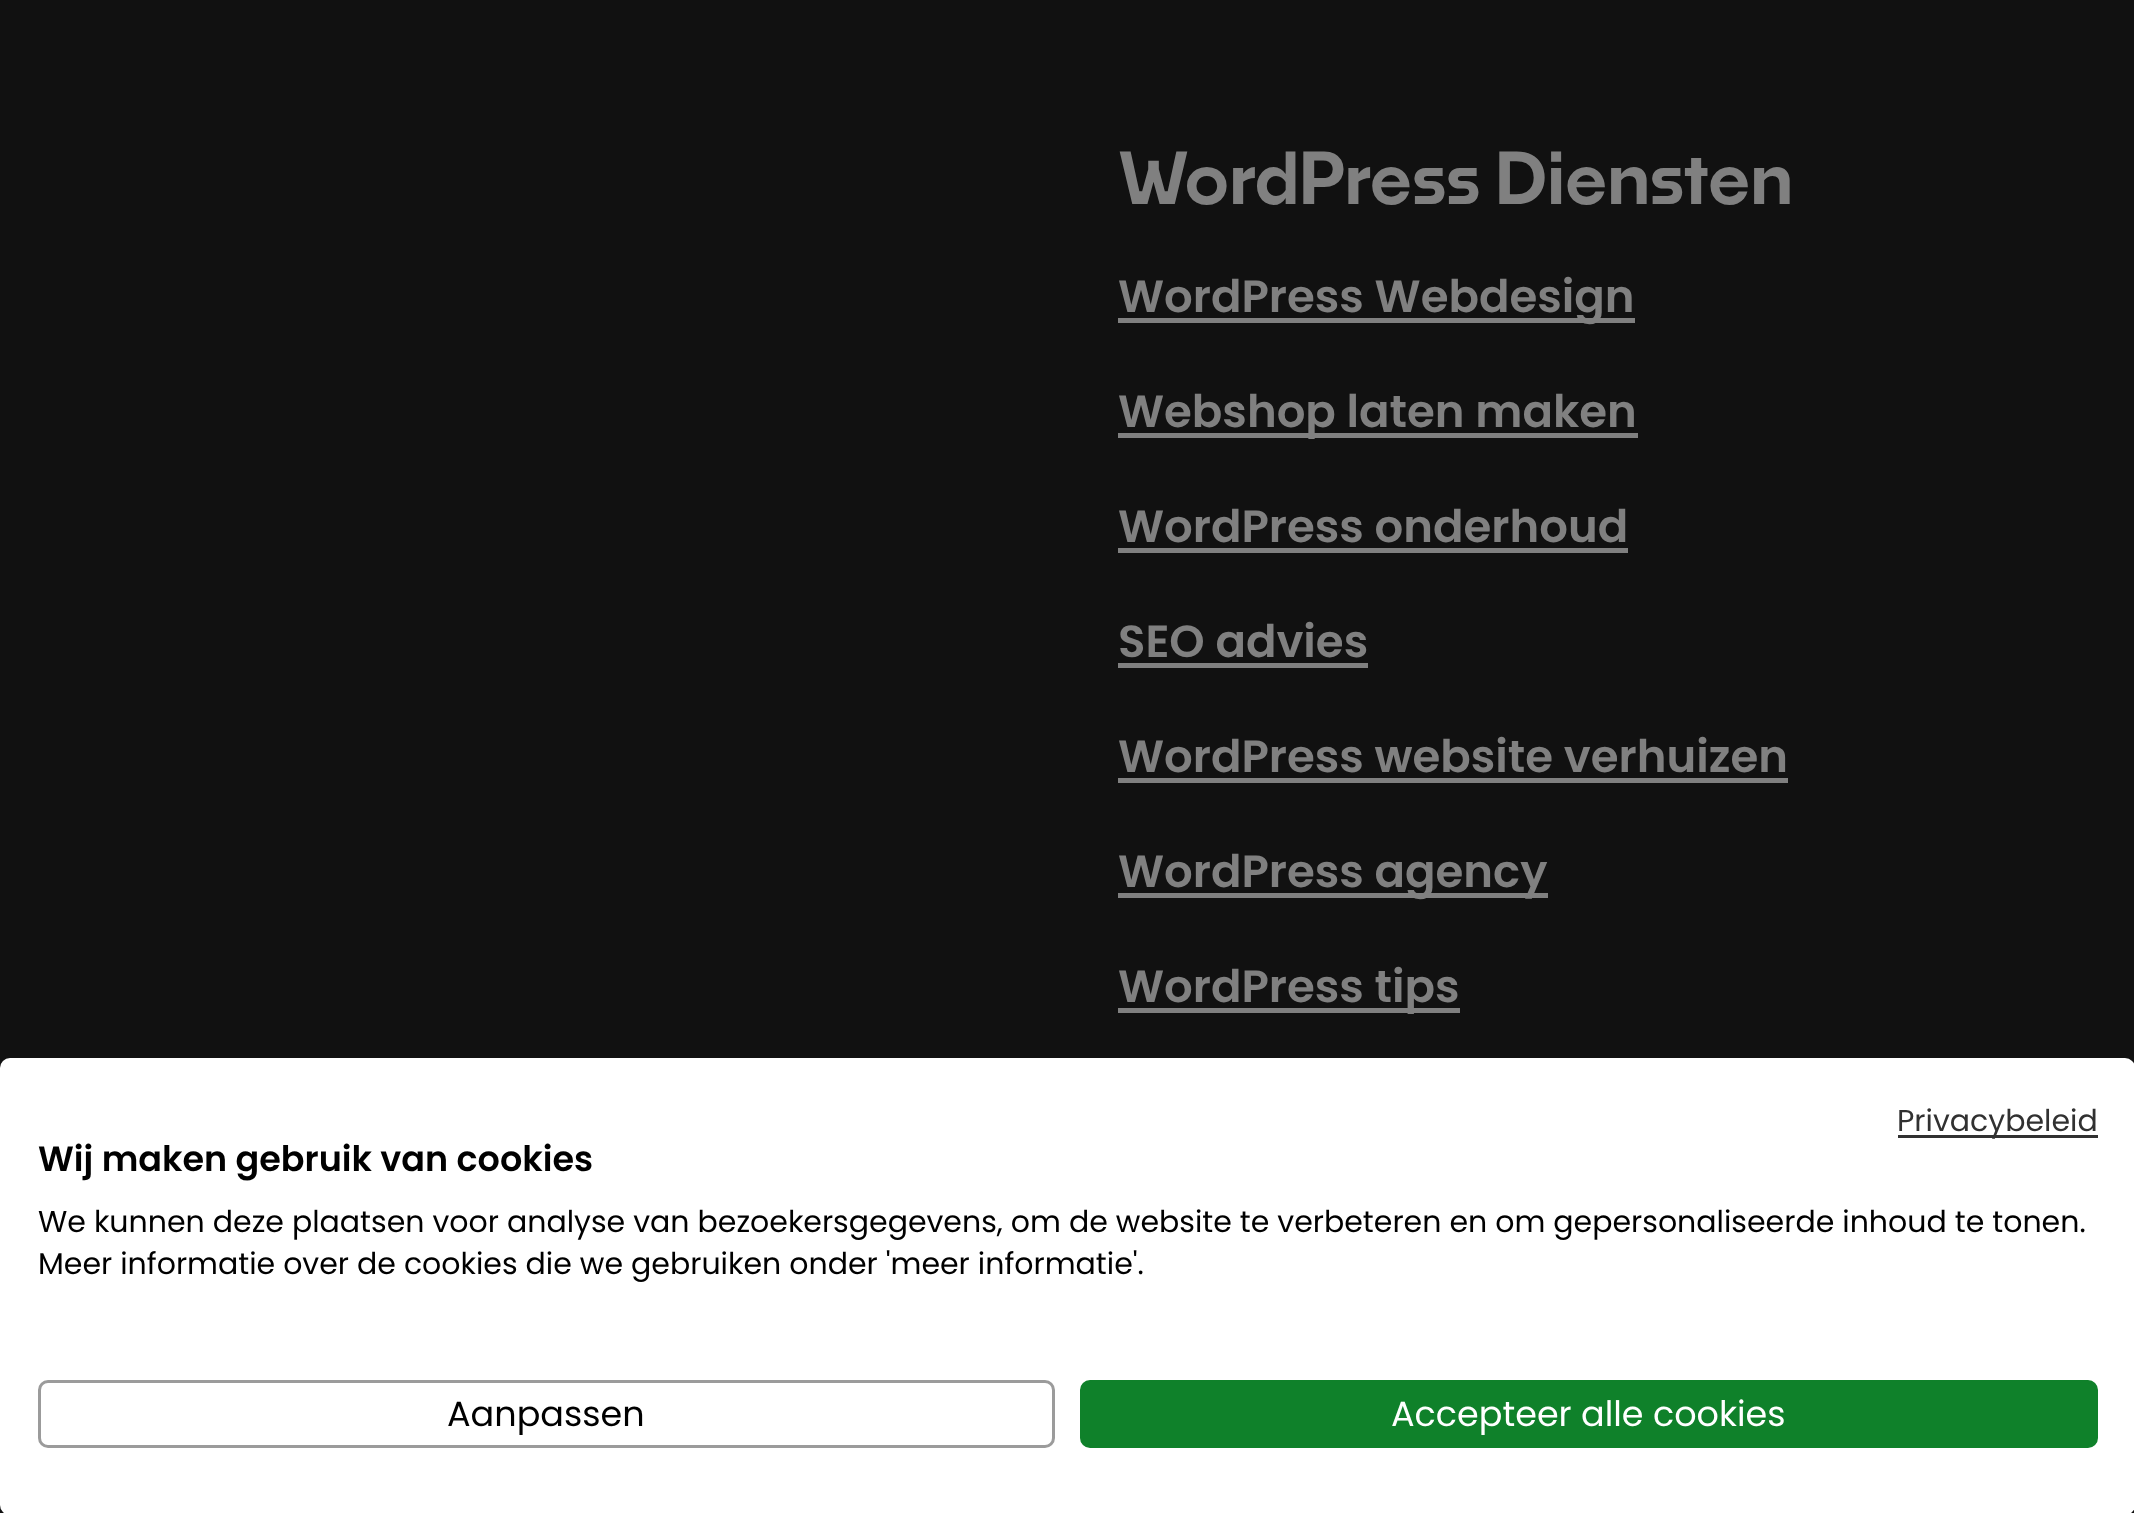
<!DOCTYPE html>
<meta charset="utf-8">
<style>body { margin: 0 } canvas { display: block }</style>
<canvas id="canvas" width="2134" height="1513"></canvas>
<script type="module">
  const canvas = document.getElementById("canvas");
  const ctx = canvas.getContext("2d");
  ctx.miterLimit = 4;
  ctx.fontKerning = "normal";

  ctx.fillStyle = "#111111";
  ctx.fillRect(0, 0, 2134, 1513);
  ctx.font = "600 70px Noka";
  ctx.fillStyle = "#808080";
  ctx.fillText("WordPress Diensten", 1118, 204);
  ctx.fillRect(1118, 318, 517, 5);
  ctx.font = "600 45px Poppins";
  ctx.fillText("WordPress Webdesign", 1118, 312);
  ctx.fillRect(1118, 433, 520, 5);
  ctx.fillText("Webshop laten maken", 1118, 427);
  ctx.fillText("WordPress onderhoud", 1118, 542);
  ctx.fillRect(1118, 548, 510, 5);
  ctx.fillText("SEO advies", 1118, 657);
  ctx.fillRect(1118, 663, 250, 5);
  ctx.fillText("WordPress website verhuizen", 1118, 772);
  ctx.fillRect(1118, 778, 670, 5);
  ctx.fillRect(1118, 893, 430, 5);
  ctx.fillText("WordPress agency", 1118, 887);
  ctx.fillRect(1118, 1008, 342, 5);
  ctx.fillText("WordPress tips", 1118, 1002);
  ctx.fillStyle = "#ffffff";
  ctx.beginPath();
  ctx.roundRect(0, 1058, 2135, 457, 10);
  ctx.fill();
  ctx.fillStyle = "#313131";
  ctx.fillRect(1898, 1135, 200, 3);
  ctx.font = "30px Poppins";
  ctx.fillText("Privacybeleid", 1897, 1131);
  ctx.font = "600 35px Poppins";
  ctx.fillStyle = "#000000";
  ctx.fillText("Wij maken gebruik van cookies", 38, 1171);
  ctx.font = "30px Poppins";
  ctx.fillText("We kunnen deze plaatsen voor analyse van bezoekersgegevens, om de website te verbeteren en om gepersonaliseerde inhoud te tonen.", 38, 1232);
  ctx.fillText("Meer informatie over de cookies die we gebruiken onder 'meer informatie'.", 38, 1274);
  ctx.beginPath();
  ctx.roundRect(39.5, 1381.5, 1014, 65, 8.5);
  ctx.strokeStyle = "#9b9b9b";
  ctx.lineWidth = 3;
  ctx.stroke();
  ctx.font = "35px Poppins";
  ctx.fillText("Aanpassen", 447, 1426);
  ctx.fillStyle = "#0f812a";
  ctx.beginPath();
  ctx.roundRect(1081.5, 1381.5, 1015, 65, 8.5);
  ctx.fill();
  ctx.strokeStyle = "#0f812a";
  ctx.stroke();
  ctx.fillStyle = "#ffffff";
  ctx.fillText("Accepteer alle cookies", 1391, 1426);
</script>
